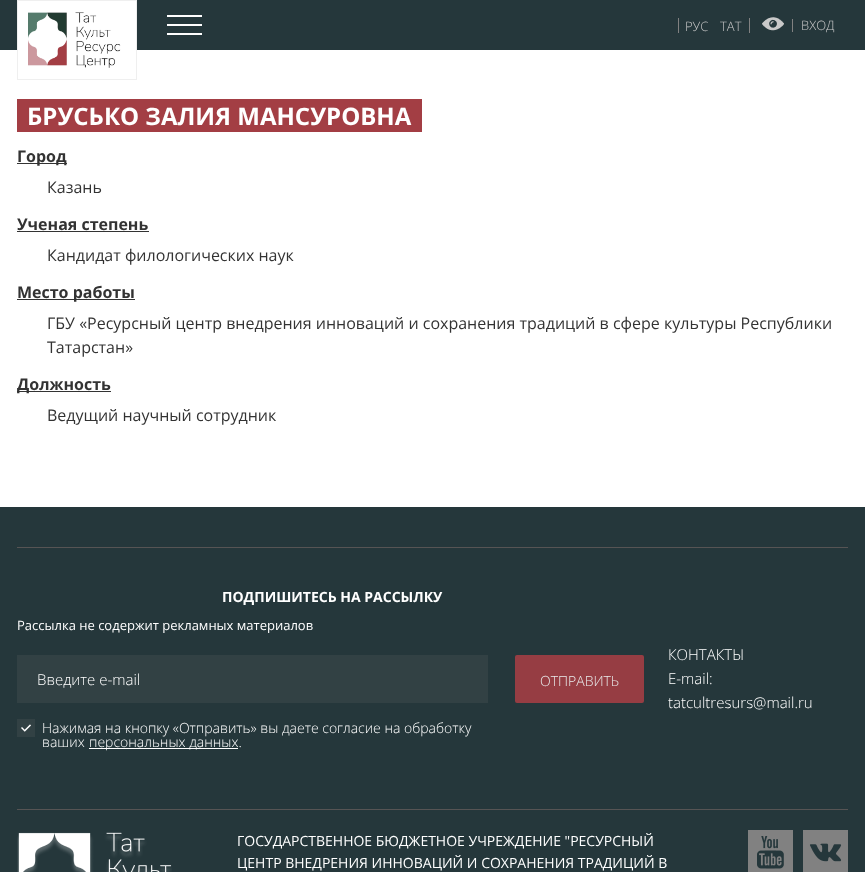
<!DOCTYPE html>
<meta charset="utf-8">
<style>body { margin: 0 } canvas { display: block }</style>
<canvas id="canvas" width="865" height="872"></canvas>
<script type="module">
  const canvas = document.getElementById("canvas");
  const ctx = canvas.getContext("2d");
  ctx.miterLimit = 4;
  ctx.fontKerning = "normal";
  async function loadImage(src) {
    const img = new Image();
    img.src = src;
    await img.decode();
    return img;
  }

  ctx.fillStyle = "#ffffff";
  ctx.fillRect(0, 0, 865, 872);
  ctx.fillStyle = "#25373b";
  ctx.fillRect(0, 0, 865, 50);
  ctx.fillStyle = "#ffffff";
  ctx.fillRect(18, 1, 118, 49);
  ctx.strokeStyle = "#efefef";
  ctx.strokeRect(17.5, 0.5, 119, 79);
  ctx.drawImage(await loadImage("img1.png"), 28, 12, 93, 56);
  ctx.fillRect(167, 15, 35, 2);
  ctx.fillRect(167, 24, 35, 2);
  ctx.fillRect(167, 33, 35, 2);
  ctx.fillStyle = "#818181";
  ctx.fillRect(749, 18, 1, 15);
  ctx.fillRect(678, 18, 1, 15);
  ctx.font = "300 13px Open Sans";
  ctx.fillStyle = "#c9c9c9";
  ctx.fillText("РУС", 685, 31);
  ctx.fillText("ТАТ", 720, 31);
  ctx.drawImage(await loadImage("img2.png"), 762, 17, 22, 14);
  ctx.fillStyle = "#818181";
  ctx.fillRect(792, 19, 1, 13);
  ctx.fillStyle = "#c9c9c9";
  ctx.fillText("ВХОД", 801, 30);
  ctx.fillStyle = "#a33e44";
  ctx.fillRect(17, 99, 395, 33);
  ctx.font = "bold 24px Open Sans";
  ctx.fillStyle = "#ffffff";
  ctx.fillText("БРУСЬКО ЗАЛИЯ МАНСУРОВНА", 27, 125);
  ctx.fillStyle = "#a33e44";
  ctx.fillRect(412, 99, 10, 33);
  ctx.fillStyle = "#333333";
  ctx.fillRect(17, 163, 50, 1);
  ctx.font = "bold 16px Open Sans";
  ctx.fillText("Город", 17, 162);
  ctx.font = "16px Open Sans";
  ctx.fillText("Казань", 47, 193);
  ctx.font = "bold 16px Open Sans";
  ctx.fillText("Ученая степень", 17, 230);
  ctx.fillRect(17, 231, 132, 1);
  ctx.font = "16px Open Sans";
  ctx.fillText("Кандидат филологических наук", 47, 261);
  ctx.fillRect(17, 299, 118, 1);
  ctx.font = "bold 16px Open Sans";
  ctx.fillText("Место работы", 17, 298);
  ctx.font = "16px Open Sans";
  ctx.fillText("ГБУ «Ресурсный центр внедрения инноваций и сохранения традиций в сфере культуры Республики", 47, 329);
  ctx.fillText("Татарстан»", 47, 353);
  ctx.fillRect(17, 391, 94, 1);
  ctx.font = "bold 16px Open Sans";
  ctx.fillText("Должность", 17, 390);
  ctx.font = "16px Open Sans";
  ctx.fillText("Ведущий научный сотрудник", 47, 421);
  ctx.fillStyle = "#25373b";
  ctx.fillRect(0, 507, 865, 365);
  ctx.fillStyle = "#565454";
  ctx.fillRect(17, 547, 831, 1);
  ctx.fillRect(17, 809, 831, 1);
  ctx.font = "bold 14px Open Sans";
  ctx.fillStyle = "#ffffff";
  ctx.fillText("ПОДПИШИТЕСЬ НА РАССЫЛКУ", 222, 602);
  ctx.font = "13px Open Sans";
  ctx.fillText("Рассылка не содержит рекламных материалов", 17, 630);
  ctx.fillStyle = "#324144";
  ctx.fillRect(17, 655, 471, 48);
  ctx.font = "300 15px Open Sans";
  ctx.fillStyle = "#ffffff";
  ctx.fillText("Введите e-mail", 37, 685);
  ctx.fillStyle = "#963d43";
  ctx.beginPath();
  ctx.roundRect(515, 655, 129, 48, 2);
  ctx.fill();
  ctx.font = "300 14px Open Sans";
  ctx.fillStyle = "#e9ebeb";
  ctx.fillText("ОТПРАВИТЬ", 540, 686);
  ctx.fillStyle = "#324144";
  ctx.fillRect(17, 719, 18, 18);
  ctx.drawImage(await loadImage("img3.png"), 21, 724, 10, 8);
  ctx.fillStyle = "#ffffff";
  ctx.fillText("Нажимая на кнопку «Отправить» вы даете согласие на обработку", 42, 733);
  ctx.fillText("ваших", 42, 747);
  ctx.fillRect(89, 748, 149, 1);
  ctx.fillText("персональных данных.", 89, 747);
  ctx.font = "300 15px Open Sans";
  ctx.fillText("КОНТАКТЫ", 668, 660);
  ctx.fillText("E-mail:", 668, 684);
  ctx.fillText("tatcultresurs@mail.ru", 668, 708);
  ctx.drawImage(await loadImage("img4.png"), 17, 832, 155, 40);
  ctx.font = "14px Open Sans";
  ctx.fillText("ГОСУДАРСТВЕННОЕ БЮДЖЕТНОЕ УЧРЕЖДЕНИЕ \"РЕСУРСНЫЙ", 237, 846);
  ctx.fillText("ЦЕНТР ВНЕДРЕНИЯ ИННОВАЦИЙ И СОХРАНЕНИЯ ТРАДИЦИЙ В", 237, 868);
  ctx.fillStyle = "#818181";
  ctx.fillRect(748, 830, 45, 42);
  ctx.drawImage(await loadImage("img5.png"), 757, 836, 27, 33);
  ctx.drawImage(await loadImage("img6.png"), 803, 830, 45, 42);
</script>
